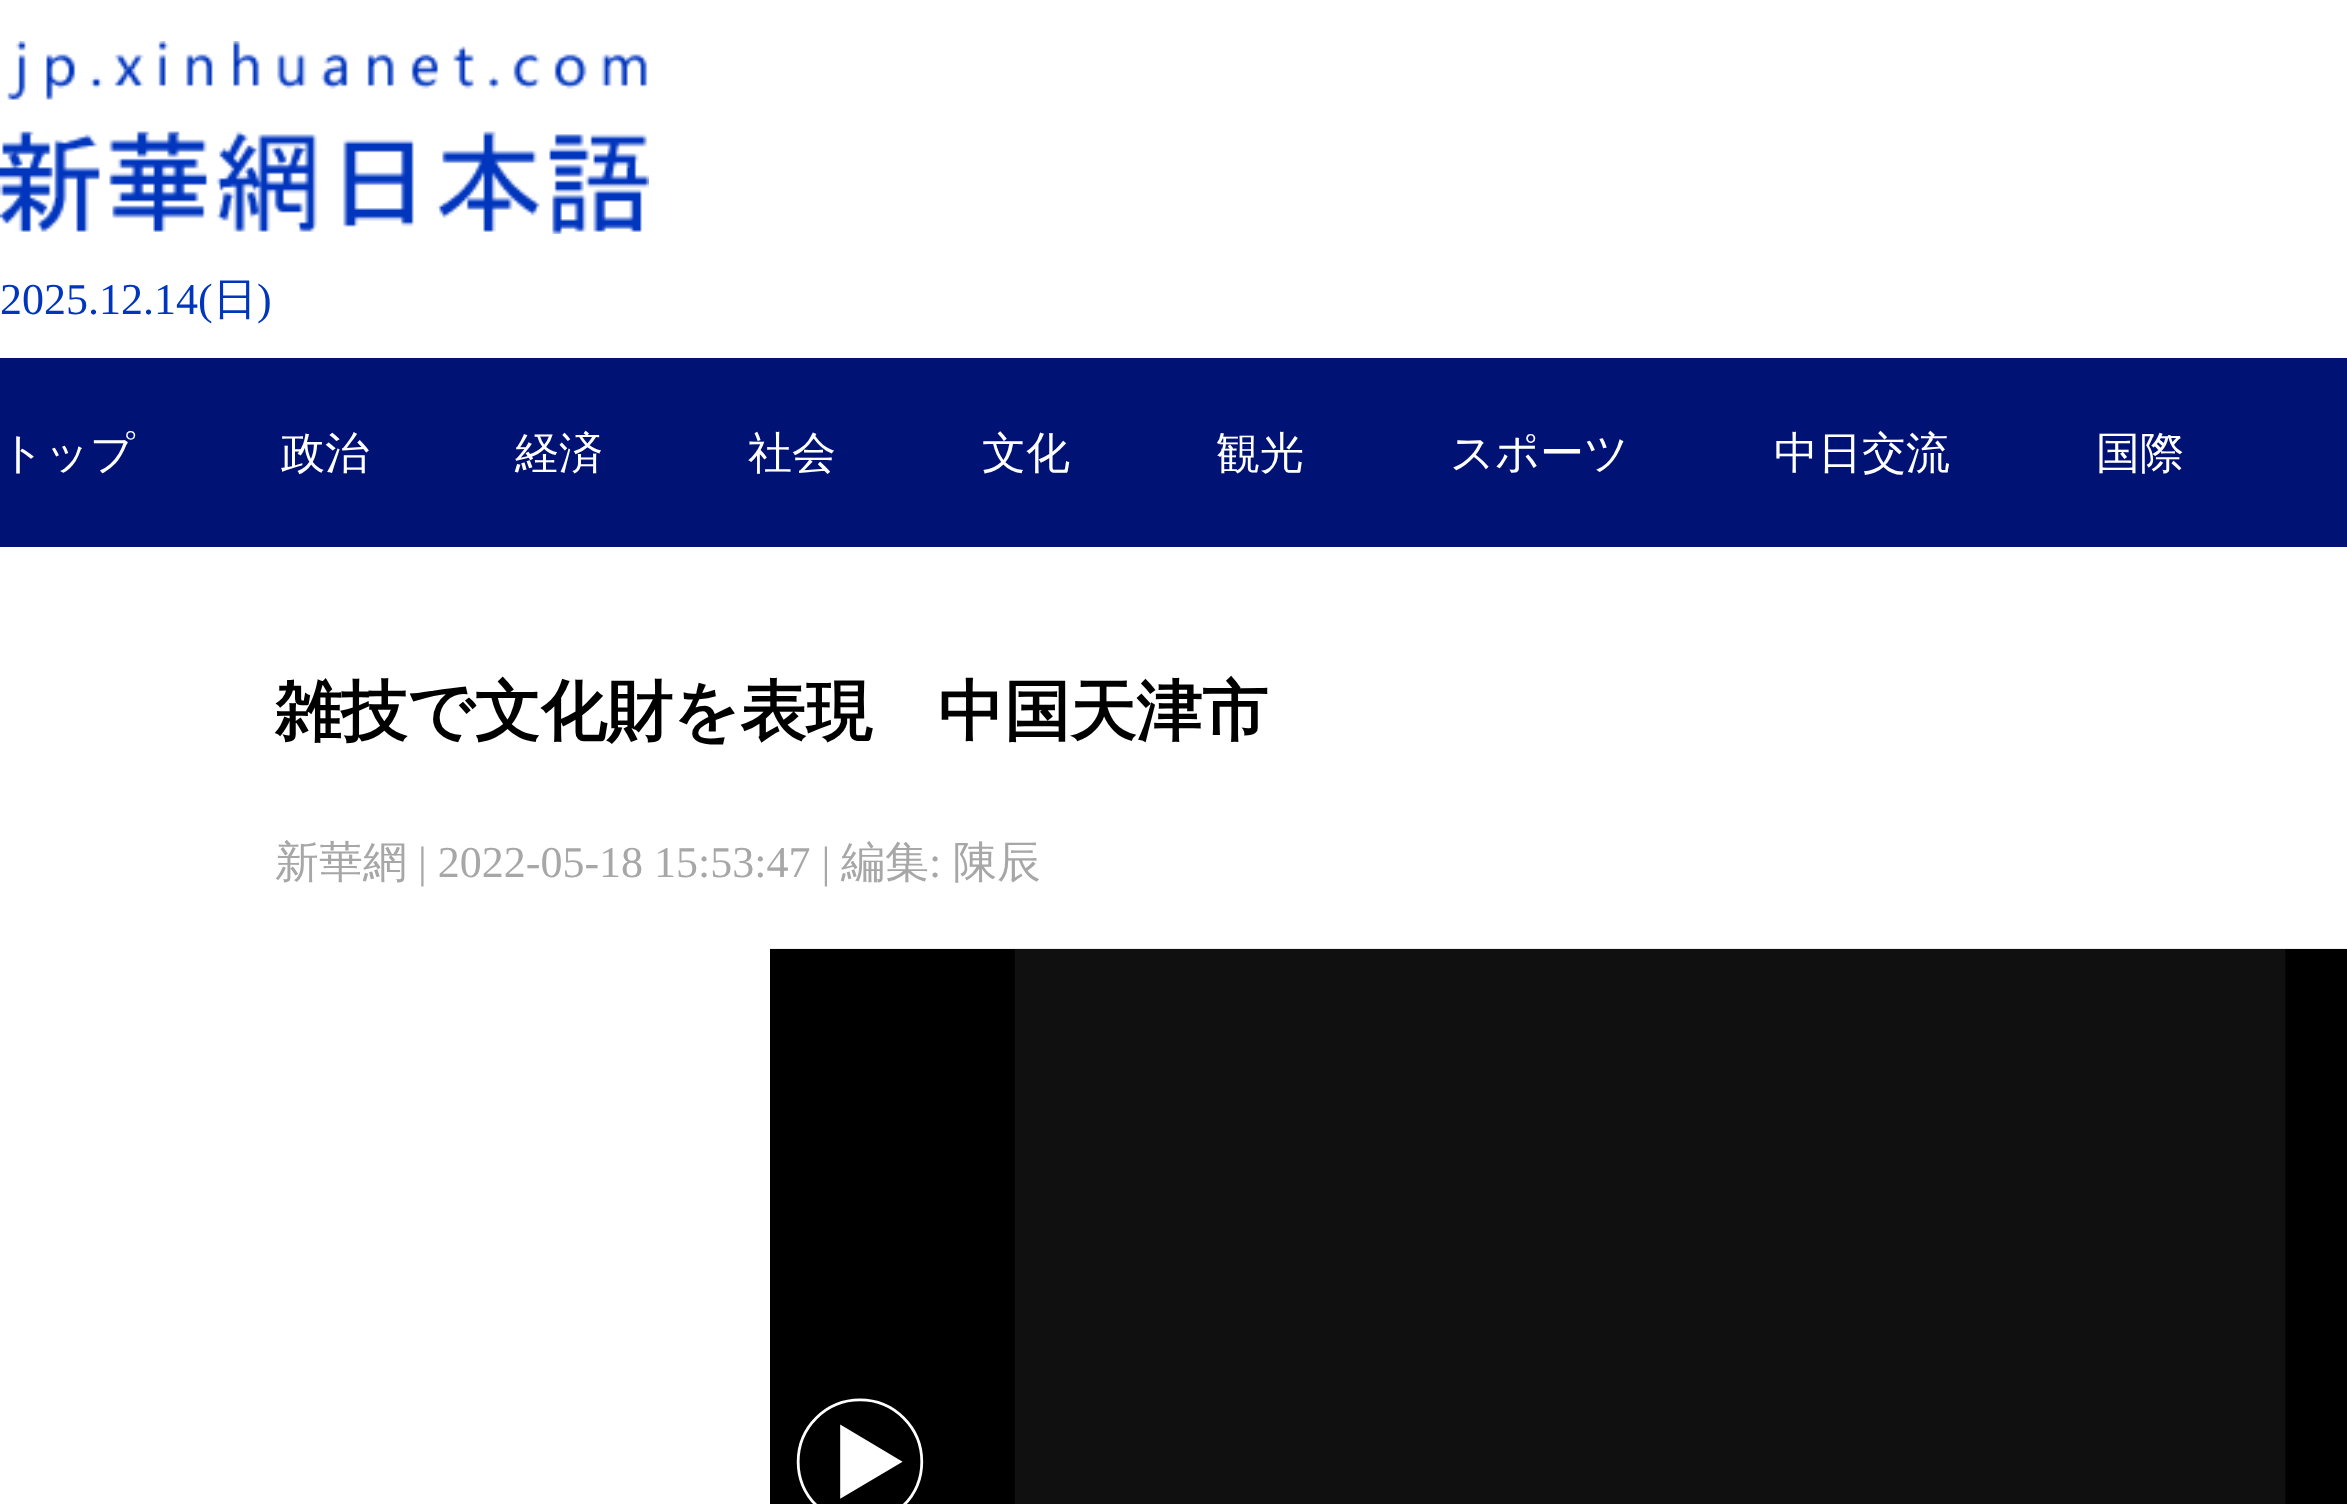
<!DOCTYPE html>
<meta charset="utf-8">
<style>body { margin: 0 } canvas { display: block }</style>
<canvas id="canvas" width="2347" height="1504"></canvas>
<script type="module">
  const canvas = document.getElementById("canvas");
  const ctx = canvas.getContext("2d");
  ctx.miterLimit = 4;
  ctx.fontKerning = "normal";
  async function loadImage(src) {
    const img = new Image();
    img.src = src;
    await img.decode();
    return img;
  }

  ctx.fillStyle = "#ffffff";
  ctx.fillRect(0, 0, 2347, 1504);
  ctx.drawImage(await loadImage("img1.png"), 0, 41, 649, 193);
  ctx.font = "44px Liberation Serif";
  ctx.fillStyle = "#0035bd";
  ctx.fillText("2025.12.14(", 0, 314);
  ctx.font = "500 44px WenQuanYi Zen Hei";
  ctx.fillText("日", 213, 314);
  ctx.font = "44px Liberation Serif";
  ctx.fillText(")", 257, 314);
  ctx.fillStyle = "#001375";
  ctx.fillRect(0, 358, 2347, 189);
  ctx.font = "500 44px WenQuanYi Zen Hei";
  ctx.fillStyle = "#ffffff";
  ctx.fillText("トップ", 0, 468);
  ctx.fillText("政治", 281, 468);
  ctx.fillText("経済", 515, 468);
  ctx.fillText("社会", 748, 468);
  ctx.fillText("文化", 982, 468);
  ctx.fillText("観光", 1216, 468);
  ctx.fillText("スポーツ", 1450, 468);
  ctx.fillText("中日交流", 1774, 468);
  ctx.fillText("国際", 2096, 468);
  ctx.font = "bold 66px WenQuanYi Zen Hei";
  ctx.fillStyle = "#000000";
  ctx.fillText("雑技で文化財を表現　中国天津市", 275, 734);
  ctx.font = "500 44px WenQuanYi Zen Hei";
  ctx.fillStyle = "#a7a7a7";
  ctx.fillText("新華網", 275, 877);
  ctx.font = "44px Liberation Serif";
  ctx.fillText("| 2022-05-18 15:53:47 |", 418, 877);
  ctx.font = "500 44px WenQuanYi Zen Hei";
  ctx.fillText("編集", 841, 877);
  ctx.font = "44px Liberation Serif";
  ctx.fillText(":", 929, 877);
  ctx.font = "500 44px WenQuanYi Zen Hei";
  ctx.fillText("陳辰", 953, 877);
  ctx.drawImage(await loadImage("img2.png"), 770, 948, 1577, 556);
</script>
